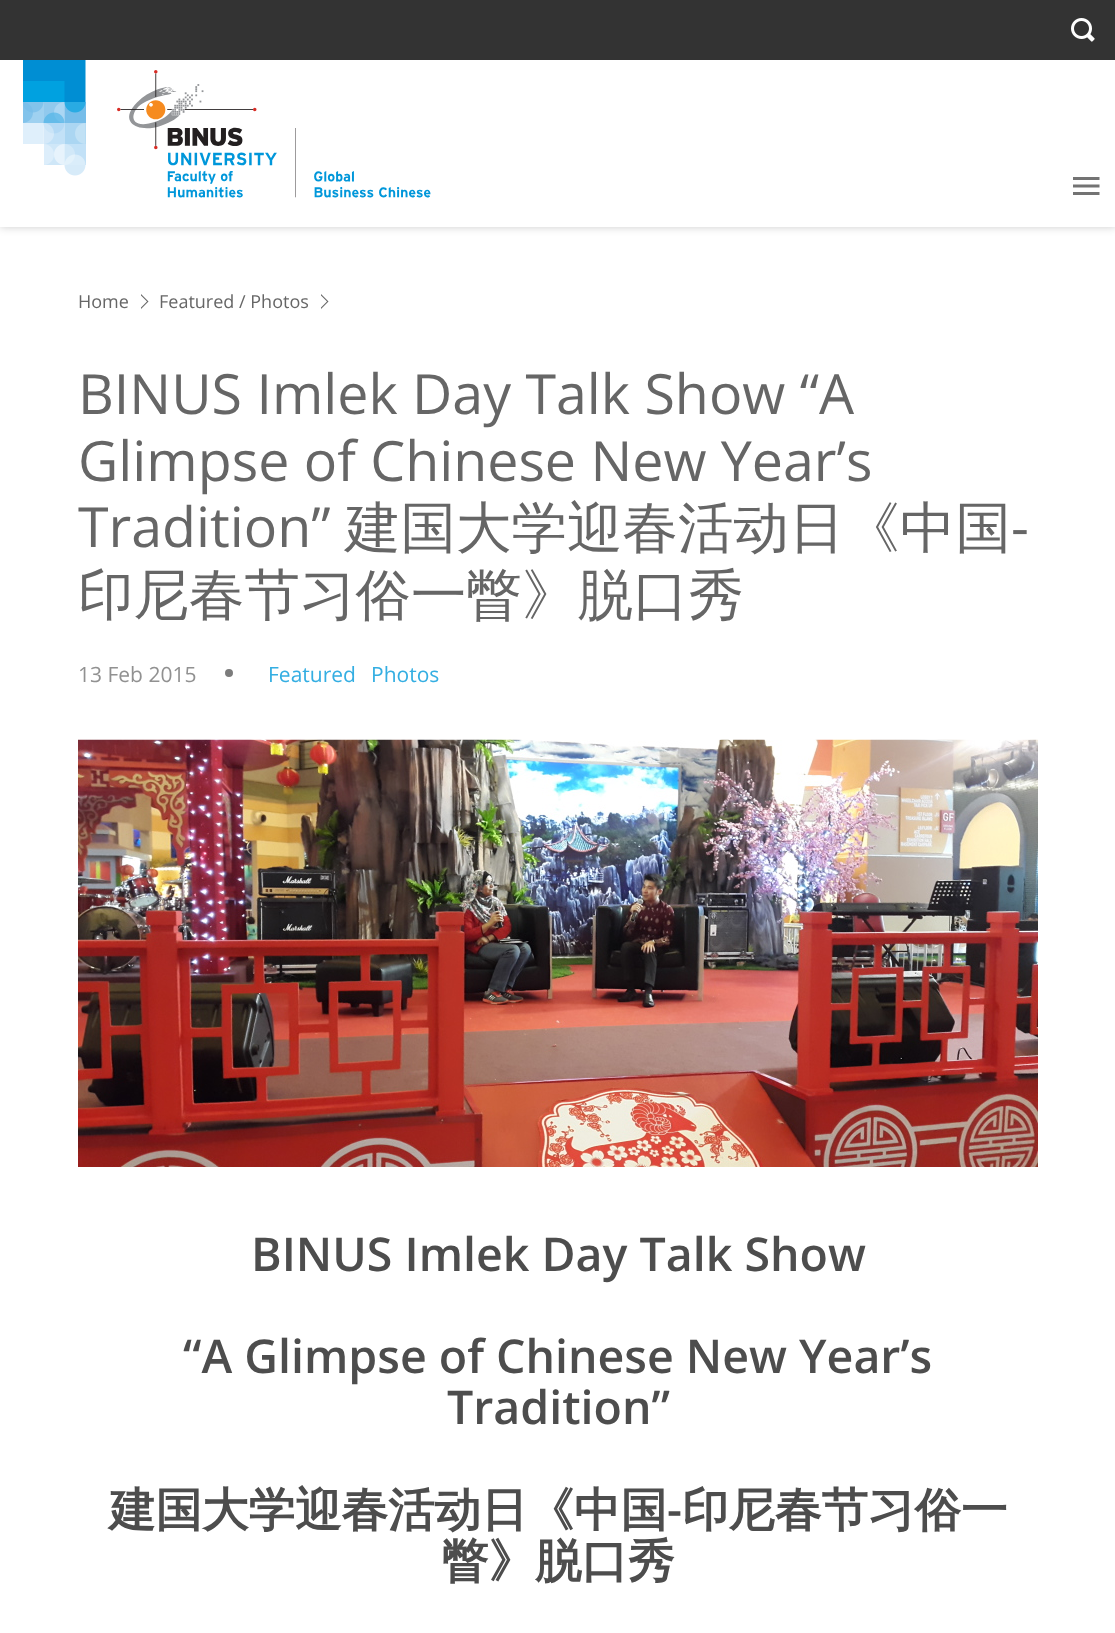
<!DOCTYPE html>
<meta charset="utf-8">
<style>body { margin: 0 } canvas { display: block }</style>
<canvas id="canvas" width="1115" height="1633"></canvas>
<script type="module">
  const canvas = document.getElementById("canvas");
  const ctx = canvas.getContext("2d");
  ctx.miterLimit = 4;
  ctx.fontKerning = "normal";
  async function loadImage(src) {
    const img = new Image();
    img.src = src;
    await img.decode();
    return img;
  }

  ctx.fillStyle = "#ffffff";
  ctx.fillRect(0, 0, 1115, 1633);
  ctx.fillStyle = "rgba(0, 0, 0, 0.2)";
  ctx.filter = "blur(4px)";
  ctx.beginPath();
  ctx.rect(0, 60, 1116, 167);
  ctx.fill();
  ctx.filter = "none";
  ctx.fillStyle = "#333333";
  ctx.fillRect(0, 0, 1115, 60);
  ctx.drawImage(await loadImage("img1.png"), 1071, 18, 24, 24);
  ctx.fillStyle = "#ffffff";
  ctx.fillRect(0, 60, 1115, 167);
  ctx.drawImage(await loadImage("img2.png"), 23, 60, 63, 116);
  ctx.drawImage(await loadImage("img3.png"), 117, 70, 314, 128);
  ctx.drawImage(await loadImage("img4.png"), 1073, 177, 27, 18);
  ctx.fillStyle = "#666666";
  ctx.beginPath();
  ctx.moveTo(141, 309);
  ctx.lineTo(141, 294);
  ctx.lineTo(148.5, 301.5);
  ctx.closePath();
  ctx.fill();
  ctx.fillStyle = "#ffffff";
  ctx.beginPath();
  ctx.moveTo(139.5, 309);
  ctx.lineTo(139.5, 294);
  ctx.lineTo(147, 301.5);
  ctx.closePath();
  ctx.fill();
  ctx.font = "18px Open Sans";
  ctx.fillStyle = "#666666";
  ctx.fillText("Home", 78, 308);
  ctx.fillText("Featured / Photos", 159, 308);
  ctx.beginPath();
  ctx.moveTo(321, 309);
  ctx.lineTo(321, 294);
  ctx.lineTo(328.5, 301.5);
  ctx.closePath();
  ctx.fill();
  ctx.fillStyle = "#ffffff";
  ctx.beginPath();
  ctx.moveTo(319.5, 309);
  ctx.lineTo(319.5, 294);
  ctx.lineTo(327, 301.5);
  ctx.closePath();
  ctx.fill();
  ctx.font = "55.5px Open Sans";
  ctx.fillStyle = "#666666";
  ctx.fillText("BINUS Imlek Day Talk Show “A", 78, 414);
  ctx.fillText("Glimpse of Chinese New Year’s", 78, 481);
  ctx.fillText("Tradition”", 78, 547);
  ctx.font = "500 55.5px WenQuanYi Zen Hei";
  ctx.fillText("建国大学迎春活动日《中国", 345, 547);
  ctx.font = "55.5px Open Sans";
  ctx.fillText("-", 1011, 547);
  ctx.font = "500 55.5px WenQuanYi Zen Hei";
  ctx.fillText("印尼春节习俗一瞥》脱口秀", 78, 614);
  ctx.font = "21px Open Sans";
  ctx.fillStyle = "#919191";
  ctx.fillText("13 Feb 2015", 78, 682);
  ctx.fillStyle = "#7c7c7c";
  ctx.beginPath();
  ctx.arc(229, 673, 3, 0, Math.PI * 2);
  ctx.fill();
  ctx.strokeStyle = "#7c7c7c";
  ctx.lineWidth = 2;
  ctx.stroke();
  ctx.fillStyle = "#34aee2";
  ctx.fillText("Featured", 268, 682);
  ctx.fillText("Photos", 371, 682);
  ctx.drawImage(await loadImage("img5.png"), 78, 739, 960, 428);
  ctx.font = "600 46.5px Open Sans";
  ctx.fillStyle = "#4d4d4d";
  ctx.fillText("BINUS Imlek Day Talk Show", 251, 1271);
  ctx.fillText("“A Glimpse of Chinese New Year’s", 183, 1373);
  ctx.fillText("Tradition”", 447, 1424);
  ctx.font = "bold 46.5px WenQuanYi Zen Hei";
  ctx.fillText("建国大学迎春活动日《中国", 109, 1526);
  ctx.font = "600 46.5px Open Sans";
  ctx.fillText("-", 667, 1526);
  ctx.font = "bold 46.5px WenQuanYi Zen Hei";
  ctx.fillText("印尼春节习俗一", 682, 1526);
  ctx.fillText("瞥》脱口秀", 442, 1577);
</script>
